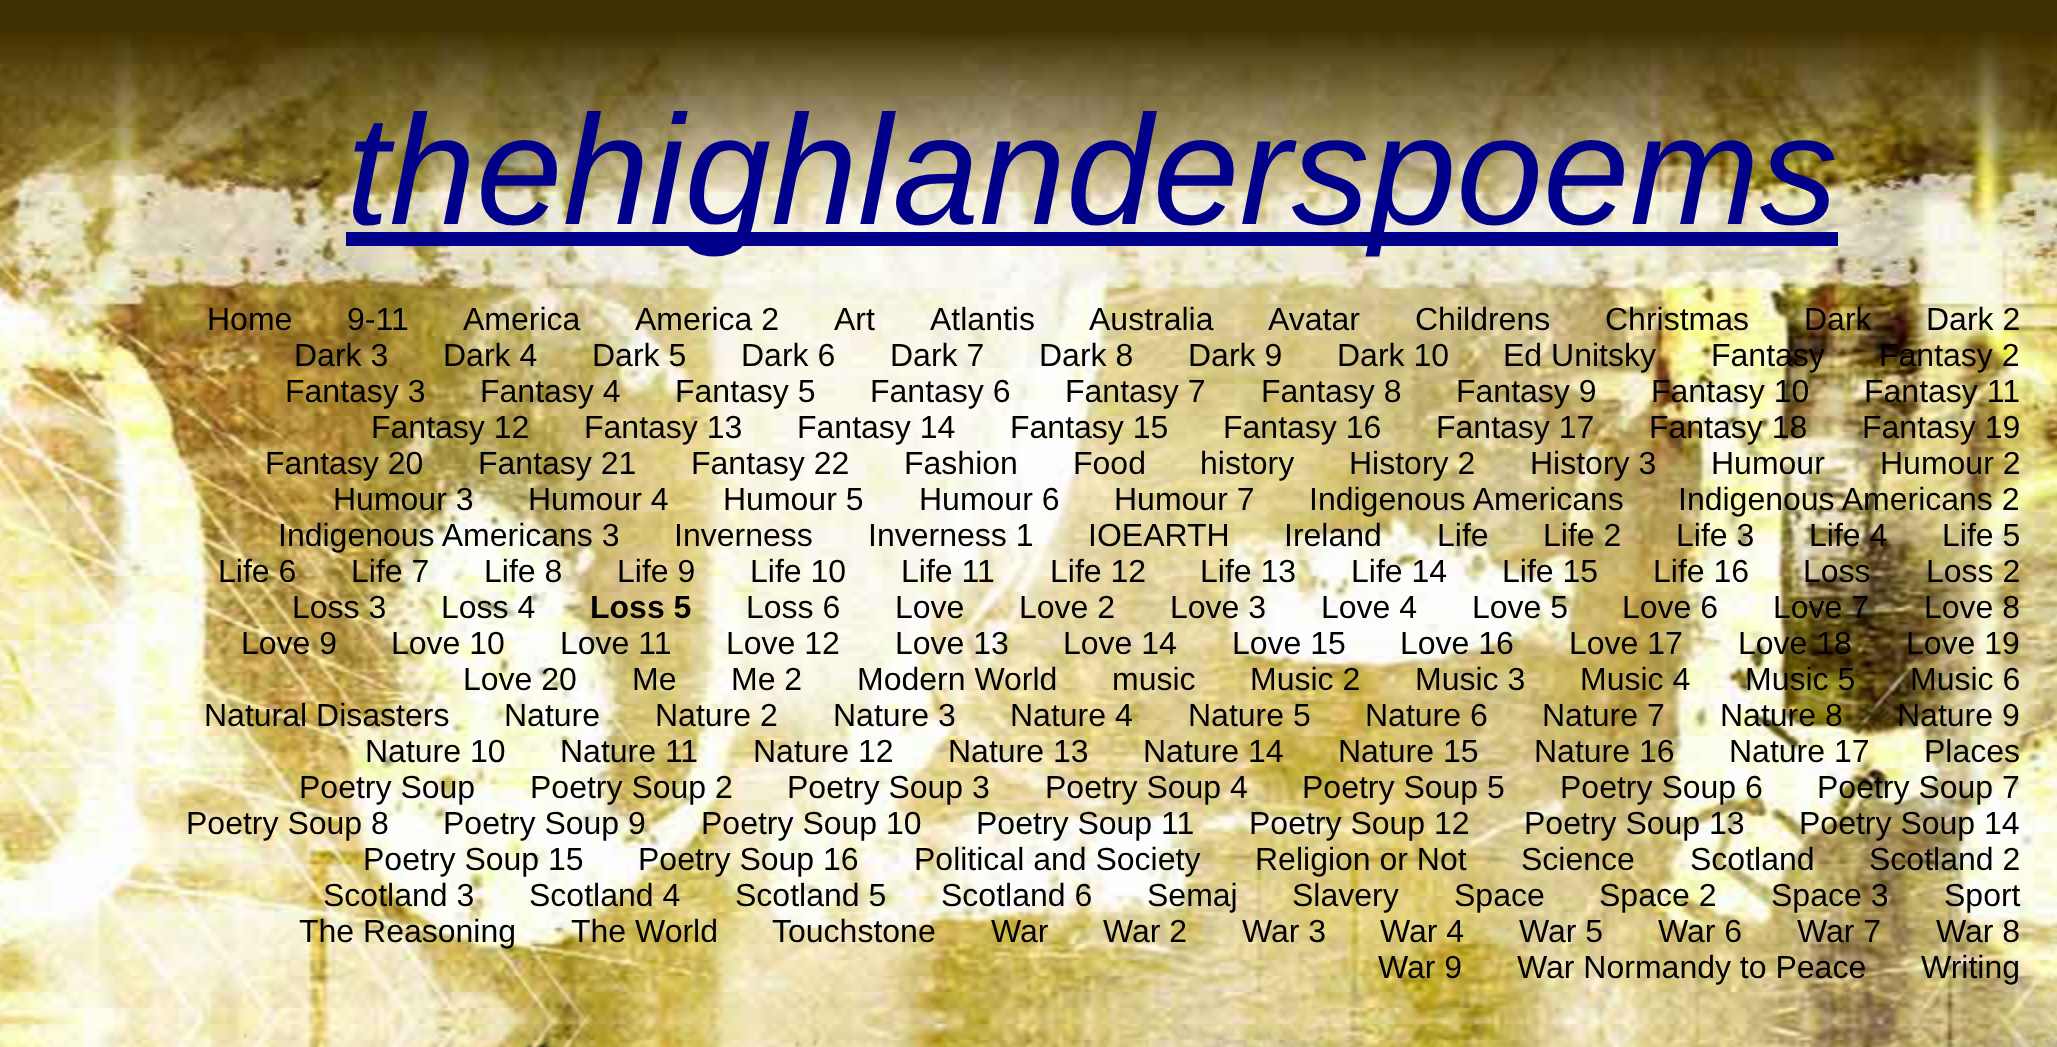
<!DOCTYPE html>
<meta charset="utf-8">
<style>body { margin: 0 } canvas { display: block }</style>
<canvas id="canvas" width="2057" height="1047"></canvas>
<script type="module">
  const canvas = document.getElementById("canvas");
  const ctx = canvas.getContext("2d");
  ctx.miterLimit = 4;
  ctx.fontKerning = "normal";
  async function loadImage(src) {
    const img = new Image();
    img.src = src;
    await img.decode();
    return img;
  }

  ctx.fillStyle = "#ffffff";
  ctx.fillRect(0, 0, 2057, 1047);
  ctx.drawImage(await loadImage("img1.png"), 0, 0, 2057, 1047);
  ctx.fillStyle = "#00008a";
  ctx.fillRect(346, 232, 1492, 14);
  ctx.font = "italic 156px Liberation Sans";
  ctx.fillText("thehighlanderspoems", 346, 224);
  ctx.font = "32px Liberation Sans";
  ctx.fillStyle = "#000000";
  ctx.fillText("Home", 207, 330);
  ctx.fillText("9-11", 347, 330);
  ctx.fillText("America", 463, 330);
  ctx.fillText("America 2", 635, 330);
  ctx.fillText("Art", 834, 330);
  ctx.fillText("Atlantis", 930, 330);
  ctx.fillText("Australia", 1089, 330);
  ctx.fillText("Avatar", 1268, 330);
  ctx.fillText("Childrens", 1415, 330);
  ctx.fillText("Christmas", 1605, 330);
  ctx.fillText("Dark", 1804, 330);
  ctx.fillText("Dark 2", 1926, 330);
  ctx.fillText("Dark 3", 294, 366);
  ctx.fillText("Dark 4", 443, 366);
  ctx.fillText("Dark 5", 592, 366);
  ctx.fillText("Dark 6", 741, 366);
  ctx.fillText("Dark 7", 890, 366);
  ctx.fillText("Dark 8", 1039, 366);
  ctx.fillText("Dark 9", 1188, 366);
  ctx.fillText("Dark 10", 1337, 366);
  ctx.fillText("Ed Unitsky", 1503, 366);
  ctx.fillText("Fantasy", 1711, 366);
  ctx.fillText("Fantasy 2", 1879, 366);
  ctx.fillText("Fantasy 3", 285, 402);
  ctx.fillText("Fantasy 4", 480, 402);
  ctx.fillText("Fantasy 5", 675, 402);
  ctx.fillText("Fantasy 6", 870, 402);
  ctx.fillText("Fantasy 7", 1065, 402);
  ctx.fillText("Fantasy 8", 1261, 402);
  ctx.fillText("Fantasy 9", 1456, 402);
  ctx.fillText("Fantasy 10", 1651, 402);
  ctx.fillText("Fantasy 11", 1864, 402);
  ctx.fillText("Fantasy 12", 371, 438);
  ctx.fillText("Fantasy 13", 584, 438);
  ctx.fillText("Fantasy 14", 797, 438);
  ctx.fillText("Fantasy 15", 1010, 438);
  ctx.fillText("Fantasy 16", 1223, 438);
  ctx.fillText("Fantasy 17", 1436, 438);
  ctx.fillText("Fantasy 18", 1649, 438);
  ctx.fillText("Fantasy 19", 1862, 438);
  ctx.fillText("Fantasy 20", 265, 474);
  ctx.fillText("Fantasy 21", 478, 474);
  ctx.fillText("Fantasy 22", 691, 474);
  ctx.fillText("Fashion", 904, 474);
  ctx.fillText("Food", 1073, 474);
  ctx.fillText("history", 1200, 474);
  ctx.fillText("History 2", 1349, 474);
  ctx.fillText("History 3", 1530, 474);
  ctx.fillText("Humour", 1711, 474);
  ctx.fillText("Humour 2", 1880, 474);
  ctx.fillText("Humour 3", 333, 510);
  ctx.fillText("Humour 4", 528, 510);
  ctx.fillText("Humour 5", 723, 510);
  ctx.fillText("Humour 6", 919, 510);
  ctx.fillText("Humour 7", 1114, 510);
  ctx.fillText("Indigenous Americans", 1309, 510);
  ctx.fillText("Indigenous Americans 2", 1678, 510);
  ctx.fillText("Indigenous Americans 3", 278, 546);
  ctx.fillText("Inverness", 674, 546);
  ctx.fillText("Inverness 1", 868, 546);
  ctx.fillText("IOEARTH", 1088, 546);
  ctx.fillText("Ireland", 1284, 546);
  ctx.fillText("Life", 1437, 546);
  ctx.fillText("Life 2", 1543, 546);
  ctx.fillText("Life 3", 1676, 546);
  ctx.fillText("Life 4", 1809, 546);
  ctx.fillText("Life 5", 1942, 546);
  ctx.fillText("Life 6", 218, 582);
  ctx.fillText("Life 7", 351, 582);
  ctx.fillText("Life 8", 484, 582);
  ctx.fillText("Life 9", 617, 582);
  ctx.fillText("Life 10", 750, 582);
  ctx.fillText("Life 11", 901, 582);
  ctx.fillText("Life 12", 1050, 582);
  ctx.fillText("Life 13", 1200, 582);
  ctx.fillText("Life 14", 1351, 582);
  ctx.fillText("Life 15", 1502, 582);
  ctx.fillText("Life 16", 1653, 582);
  ctx.fillText("Loss", 1803, 582);
  ctx.fillText("Loss 2", 1926, 582);
  ctx.fillText("Loss 3", 292, 618);
  ctx.fillText("Loss 4", 441, 618);
  ctx.font = "bold 32px Liberation Sans";
  ctx.fillText("Loss 5", 590, 618);
  ctx.font = "32px Liberation Sans";
  ctx.fillText("Loss 6", 746, 618);
  ctx.fillText("Love", 895, 618);
  ctx.fillText("Love 2", 1019, 618);
  ctx.fillText("Love 3", 1170, 618);
  ctx.fillText("Love 4", 1321, 618);
  ctx.fillText("Love 5", 1472, 618);
  ctx.fillText("Love 6", 1622, 618);
  ctx.fillText("Love 7", 1773, 618);
  ctx.fillText("Love 8", 1924, 618);
  ctx.fillText("Love 9", 241, 654);
  ctx.fillText("Love 10", 391, 654);
  ctx.fillText("Love 11", 560, 654);
  ctx.fillText("Love 12", 726, 654);
  ctx.fillText("Love 13", 895, 654);
  ctx.fillText("Love 14", 1063, 654);
  ctx.fillText("Love 15", 1232, 654);
  ctx.fillText("Love 16", 1400, 654);
  ctx.fillText("Love 17", 1569, 654);
  ctx.fillText("Love 18", 1738, 654);
  ctx.fillText("Love 19", 1906, 654);
  ctx.fillText("Love 20", 463, 690);
  ctx.fillText("Me", 632, 690);
  ctx.fillText("Me 2", 731, 690);
  ctx.fillText("Modern World", 857, 690);
  ctx.fillText("music", 1112, 690);
  ctx.fillText("Music 2", 1250, 690);
  ctx.fillText("Music 3", 1415, 690);
  ctx.fillText("Music 4", 1580, 690);
  ctx.fillText("Music 5", 1745, 690);
  ctx.fillText("Music 6", 1910, 690);
  ctx.fillText("Natural Disasters", 204, 726);
  ctx.fillText("Nature", 504, 726);
  ctx.fillText("Nature 2", 655, 726);
  ctx.fillText("Nature 3", 833, 726);
  ctx.fillText("Nature 4", 1010, 726);
  ctx.fillText("Nature 5", 1188, 726);
  ctx.fillText("Nature 6", 1365, 726);
  ctx.fillText("Nature 7", 1542, 726);
  ctx.fillText("Nature 8", 1720, 726);
  ctx.fillText("Nature 9", 1897, 726);
  ctx.fillText("Nature 10", 365, 762);
  ctx.fillText("Nature 11", 560, 762);
  ctx.fillText("Nature 12", 753, 762);
  ctx.fillText("Nature 13", 948, 762);
  ctx.fillText("Nature 14", 1143, 762);
  ctx.fillText("Nature 15", 1338, 762);
  ctx.fillText("Nature 16", 1534, 762);
  ctx.fillText("Nature 17", 1729, 762);
  ctx.fillText("Places", 1924, 762);
  ctx.fillText("Poetry Soup", 299, 798);
  ctx.fillText("Poetry Soup 2", 530, 798);
  ctx.fillText("Poetry Soup 3", 787, 798);
  ctx.fillText("Poetry Soup 4", 1045, 798);
  ctx.fillText("Poetry Soup 5", 1302, 798);
  ctx.fillText("Poetry Soup 6", 1560, 798);
  ctx.fillText("Poetry Soup 7", 1817, 798);
  ctx.fillText("Poetry Soup 8", 186, 834);
  ctx.fillText("Poetry Soup 9", 443, 834);
  ctx.fillText("Poetry Soup 10", 701, 834);
  ctx.fillText("Poetry Soup 11", 976, 834);
  ctx.fillText("Poetry Soup 12", 1249, 834);
  ctx.fillText("Poetry Soup 13", 1524, 834);
  ctx.fillText("Poetry Soup 14", 1799, 834);
  ctx.fillText("Poetry Soup 15", 363, 870);
  ctx.fillText("Poetry Soup 16", 638, 870);
  ctx.fillText("Political and Society", 914, 870);
  ctx.fillText("Religion or Not", 1255, 870);
  ctx.fillText("Science", 1521, 870);
  ctx.fillText("Scotland", 1690, 870);
  ctx.fillText("Scotland 2", 1869, 870);
  ctx.fillText("Scotland 3", 323, 906);
  ctx.fillText("Scotland 4", 529, 906);
  ctx.fillText("Scotland 5", 735, 906);
  ctx.fillText("Scotland 6", 941, 906);
  ctx.fillText("Semaj", 1147, 906);
  ctx.fillText("Slavery", 1292, 906);
  ctx.fillText("Space", 1454, 906);
  ctx.fillText("Space 2", 1599, 906);
  ctx.fillText("Space 3", 1771, 906);
  ctx.fillText("Sport", 1944, 906);
  ctx.fillText("The Reasoning", 299, 942);
  ctx.fillText("The World", 571, 942);
  ctx.fillText("Touchstone", 772, 942);
  ctx.fillText("War", 991, 942);
  ctx.fillText("War 2", 1103, 942);
  ctx.fillText("War 3", 1242, 942);
  ctx.fillText("War 4", 1380, 942);
  ctx.fillText("War 5", 1519, 942);
  ctx.fillText("War 6", 1658, 942);
  ctx.fillText("War 7", 1797, 942);
  ctx.fillText("War 8", 1936, 942);
  ctx.fillText("War 9", 1378, 978);
  ctx.fillText("War Normandy to Peace", 1517, 978);
  ctx.fillText("Writing", 1921, 978);
  ctx.drawImage(await loadImage("img2.png"), 243, 991, 1814, 56);
</script>
